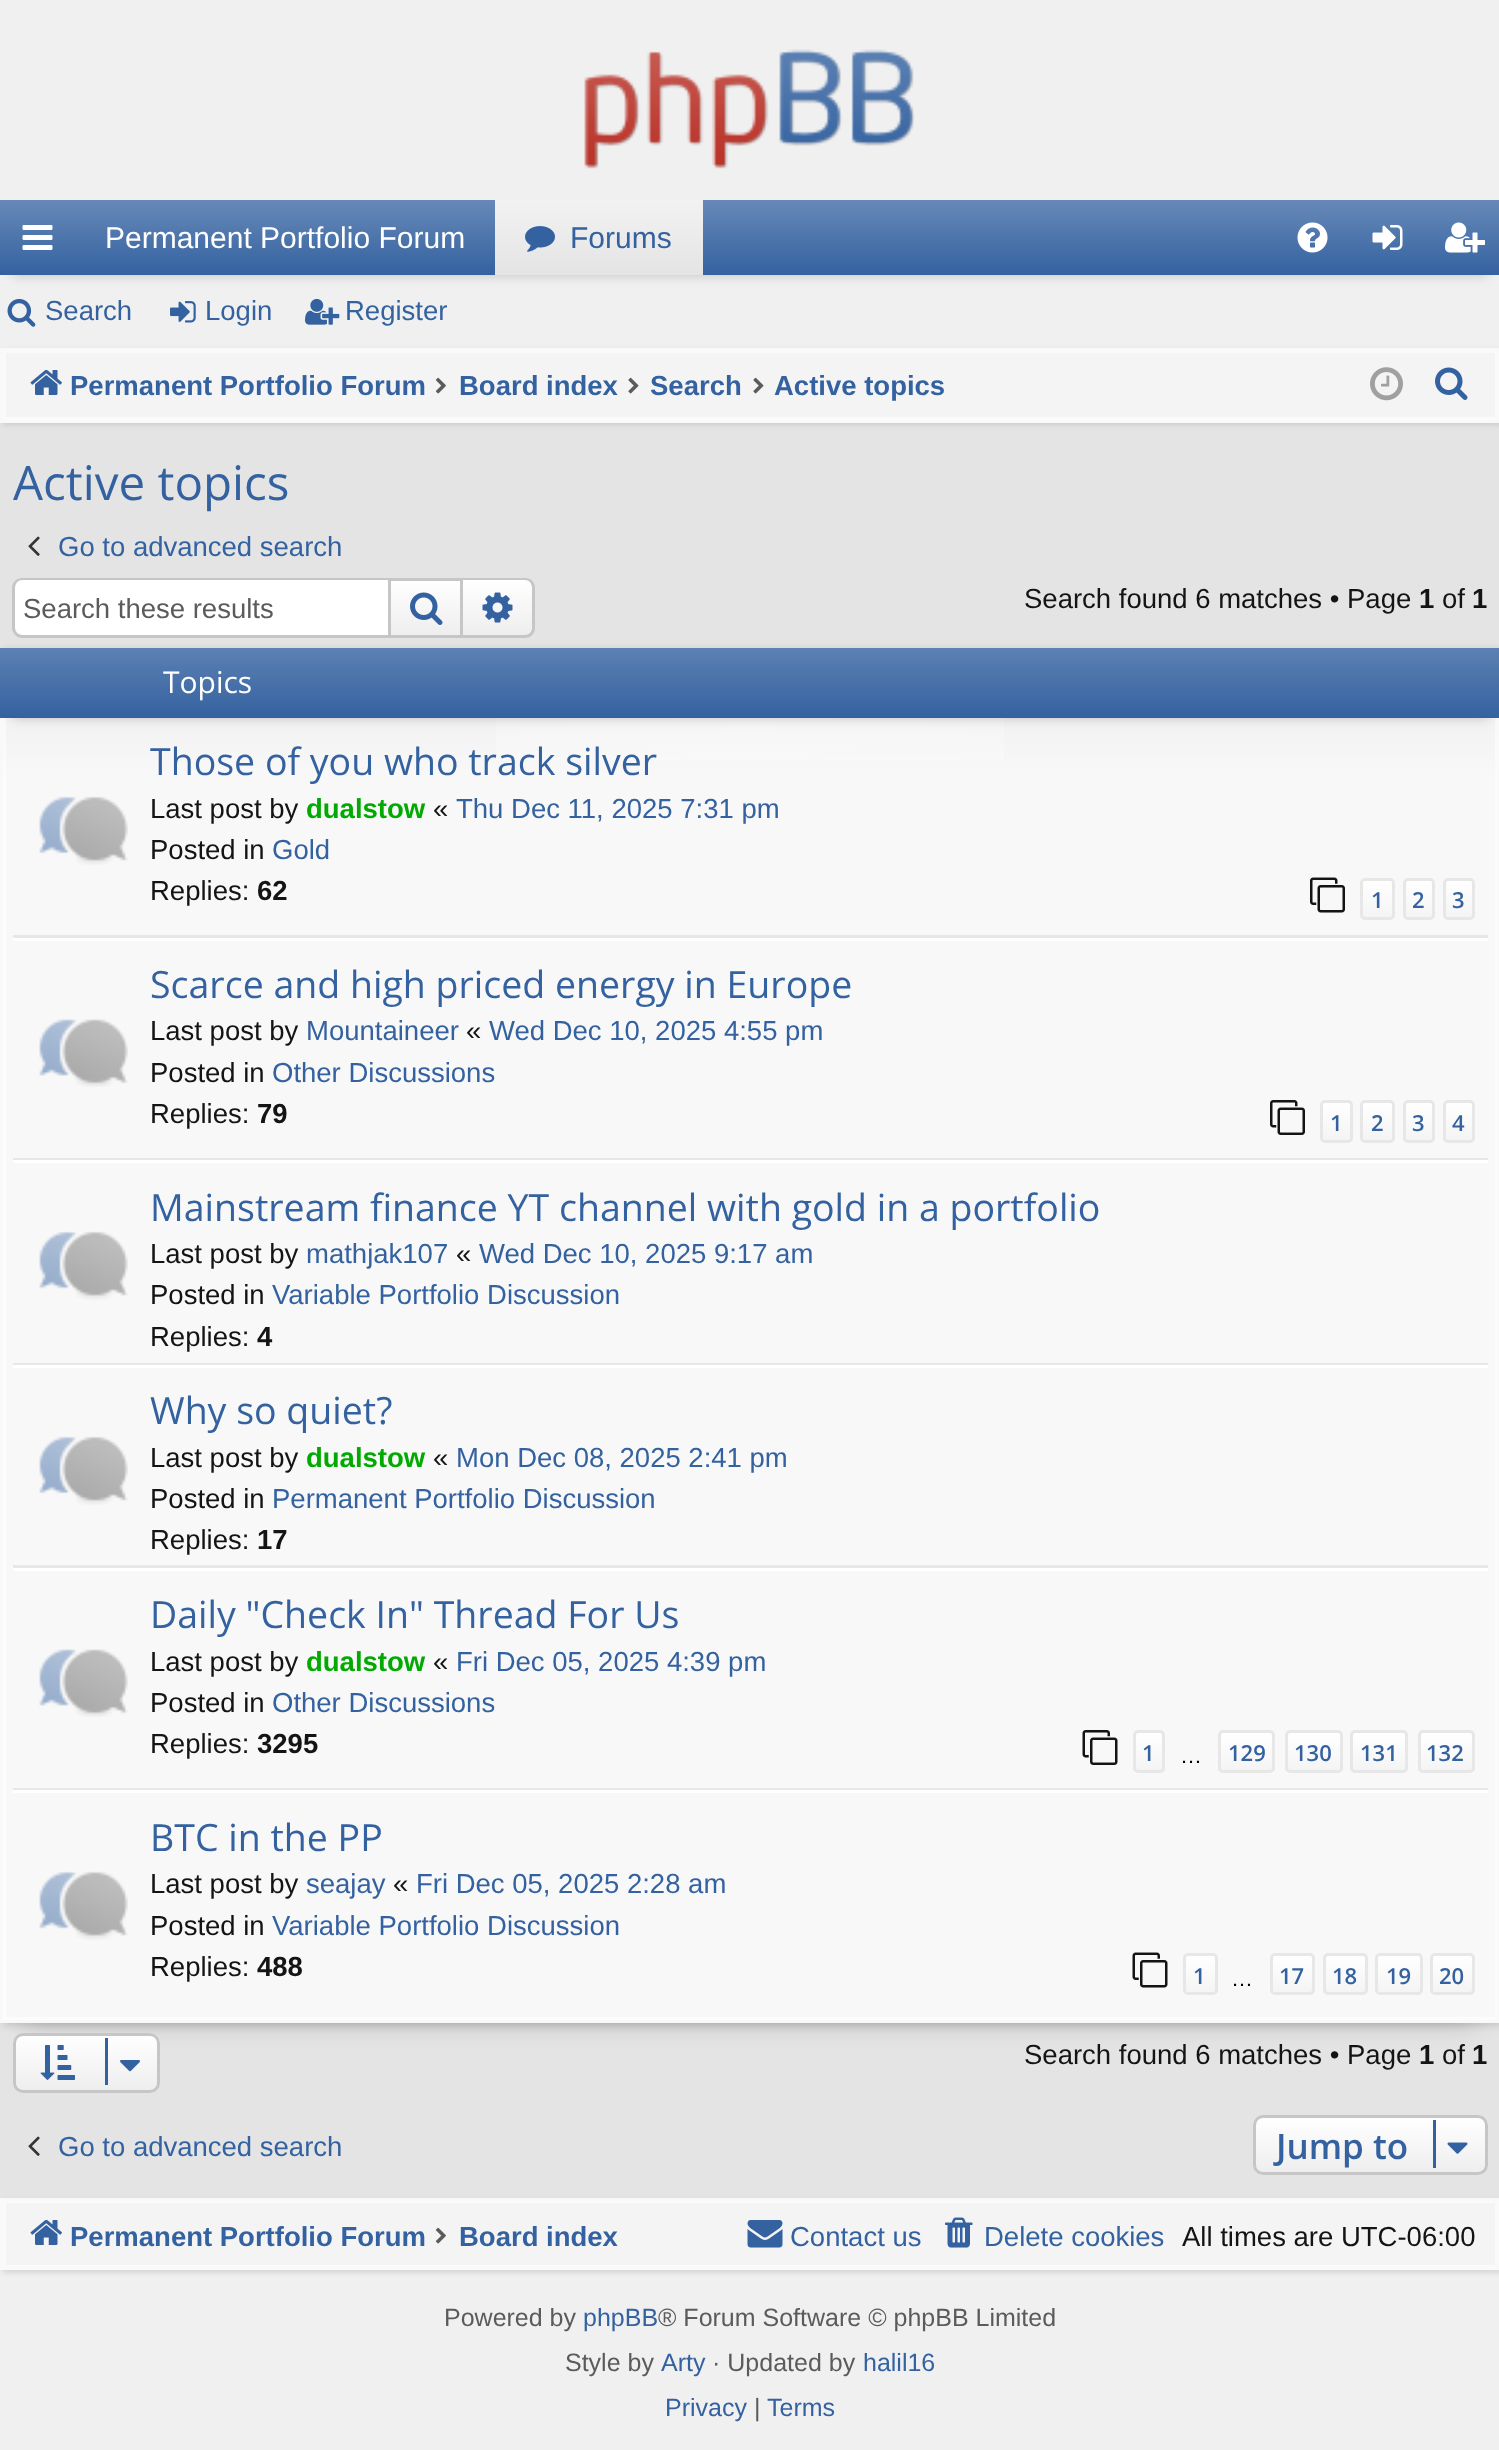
<!DOCTYPE html>
<meta charset="utf-8">
<style>body { margin: 0 } canvas { display: block }</style>
<canvas id="canvas" width="1499" height="2450"></canvas>
<script type="module">
  const canvas = document.getElementById("canvas");
  const ctx = canvas.getContext("2d");
  ctx.miterLimit = 4;
  ctx.fontKerning = "normal";
  async function loadImage(src) {
    const img = new Image();
    img.src = src;
    await img.decode();
    return img;
  }
  let gradient;

  ctx.fillStyle = "#f0f0f0";
  ctx.fillRect(0, 0, 1499, 2450);
  ctx.drawImage(await loadImage("img1.png"), 584, 49, 331, 120);
  ctx.fillStyle = "rgba(0, 0, 0, 0.2)";
  ctx.filter = "blur(6px)";
  ctx.beginPath();
  ctx.rect(13, 225, 1475, 50);
  ctx.fill();
  ctx.filter = "none";
  gradient = ctx.createLinearGradient(750, 200, 750, 275);
  gradient.addColorStop(0, "#6789b8");
  gradient.addColorStop(1, "#3462a0");
  ctx.fillStyle = gradient;
  ctx.fillRect(0, 200, 1499, 75);
  ctx.drawImage(await loadImage("img2.png"), 22, 225, 31, 25);
  ctx.font = "30px Liberation Sans";
  ctx.fillStyle = "#ffffff";
  ctx.fillText("Permanent Portfolio Forum", 105, 248);
  gradient = ctx.createLinearGradient(599, 200, 599, 275);
  gradient.addColorStop(0, "#f2f2f2");
  gradient.addColorStop(1, "#e4e4e4");
  ctx.fillStyle = gradient;
  ctx.fillRect(495, 200, 208, 75);
  ctx.drawImage(await loadImage("img3.png"), 525, 226, 30, 26);
  ctx.fillStyle = "#3462a0";
  ctx.fillText("Forums", 570, 248);
  ctx.drawImage(await loadImage("img4.png"), 1297, 222, 31, 31);
  ctx.drawImage(await loadImage("img5.png"), 1372, 225, 31, 25);
  ctx.drawImage(await loadImage("img6.png"), 1445, 222, 40, 31);
  ctx.drawImage(await loadImage("img7.png"), 7, 298, 29, 29);
  ctx.font = "27.5px Liberation Sans";
  ctx.fillText("Search", 45, 320);
  ctx.drawImage(await loadImage("img8.png"), 170, 301, 26, 22);
  ctx.fillText("Login", 205, 320);
  ctx.drawImage(await loadImage("img9.png"), 305, 298, 35, 27);
  ctx.fillText("Register", 345, 320);
  ctx.fillStyle = "#e4e4e4";
  ctx.fillRect(0, 423, 1499, 1775);
  ctx.fillStyle = "rgba(0, 0, 0, 0.1)";
  ctx.filter = "blur(2.5px)";
  ctx.beginPath();
  ctx.rect(3, 350, 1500, 75);
  ctx.fill();
  ctx.filter = "none";
  ctx.fillStyle = "#f4f4f4";
  ctx.beginPath();
  ctx.rect(4.5, 351.5, 1492, 67);
  ctx.fill();
  ctx.strokeStyle = "#fafafa";
  ctx.lineWidth = 3;
  ctx.stroke();
  ctx.strokeStyle = "#f9f9f9";
  ctx.strokeRect(1.5, 349.5, 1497, 72);
  ctx.drawImage(await loadImage("img10.png"), 30, 369, 32, 26);
  ctx.font = "bold 27.5px Liberation Sans";
  ctx.fillStyle = "#3462a0";
  ctx.fillText("Permanent Portfolio Forum", 70, 395);
  ctx.drawImage(await loadImage("img11.png"), 435, 377, 11, 17);
  ctx.fillText("Board index", 459, 395);
  ctx.drawImage(await loadImage("img12.png"), 628, 377, 11, 17);
  ctx.fillText("Search", 650, 395);
  ctx.drawImage(await loadImage("img12.png"), 753, 377, 11, 17);
  ctx.fillText("Active topics", 774, 395);
  ctx.drawImage(await loadImage("img13.png"), 1370, 367, 33, 34);
  ctx.drawImage(await loadImage("img14.png"), 1435, 367, 33, 33);
  ctx.font = "47.5px Open Sans";
  ctx.fillText("Active topics", 13, 500);
  ctx.drawImage(await loadImage("img15.png"), 28, 536, 12, 20);
  ctx.font = "27.5px Liberation Sans";
  ctx.fillText("Go to advanced search", 58, 556);
  ctx.fillStyle = "#ffffff";
  ctx.beginPath();
  ctx.roundRect(15, 580, 373, 55, [8, 0, 0, 8]);
  ctx.fill();
  ctx.fillStyle = "rgba(0, 0, 0, 0.15)";
  ctx.filter = "blur(4px)";
  ctx.beginPath();
  ctx.rect(3, 650, 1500, 1375);
  ctx.fill();
  ctx.filter = "none";
  ctx.fillStyle = "#c6c6c6";
  ctx.beginPath();
  ctx.moveTo(22, 578);
  ctx.lineTo(388, 578);
  ctx.lineTo(388, 638);
  ctx.lineTo(22, 638);
  ctx.bezierCurveTo(17, 638, 12, 633, 12, 628);
  ctx.lineTo(12, 588);
  ctx.bezierCurveTo(12, 582, 17, 578, 22, 578);
  ctx.closePath();
  ctx.moveTo(22, 580);
  ctx.lineTo(388, 580);
  ctx.lineTo(388, 635);
  ctx.lineTo(22, 635);
  ctx.bezierCurveTo(18, 635, 15, 632, 15, 628);
  ctx.lineTo(15, 588);
  ctx.bezierCurveTo(15, 583, 18, 580, 22, 580);
  ctx.closePath();
  ctx.fill("evenodd");
  ctx.fillStyle = "#5b5b5b";
  ctx.fillText("Search these results", 23, 618);
  gradient = ctx.createLinearGradient(425, 580, 425, 635);
  gradient.addColorStop(0, "#ffffff");
  gradient.addColorStop(1, "#eeeeee");
  ctx.fillStyle = gradient;
  ctx.fillRect(391, 581, 69, 54);
  ctx.strokeStyle = "#c6c6c6";
  ctx.strokeRect(389.5, 579.5, 72, 57);
  ctx.drawImage(await loadImage("img16.png"), 410, 592, 33, 33);
  ctx.fillStyle = "#eeeeee";
  ctx.beginPath();
  ctx.roundRect(463, 580, 70, 55, [0, 8, 8, 0]);
  ctx.fill();
  gradient = ctx.createLinearGradient(498, 580, 498, 635);
  gradient.addColorStop(0, "#ffffff");
  gradient.addColorStop(1, "rgba(255, 255, 255, 0)");
  ctx.fillStyle = gradient;
  ctx.beginPath();
  ctx.roundRect(463, 580, 70, 55, [0, 8, 8, 0]);
  ctx.fill();
  ctx.fillStyle = "#c6c6c6";
  ctx.beginPath();
  ctx.moveTo(462, 578);
  ctx.lineTo(525, 578);
  ctx.bezierCurveTo(531, 578, 535, 582, 535, 588);
  ctx.lineTo(535, 628);
  ctx.bezierCurveTo(535, 633, 531, 638, 525, 638);
  ctx.lineTo(462, 638);
  ctx.closePath();
  ctx.moveTo(462, 580);
  ctx.lineTo(525, 580);
  ctx.bezierCurveTo(529, 580, 532, 583, 532, 588);
  ctx.lineTo(532, 628);
  ctx.bezierCurveTo(532, 632, 529, 635, 525, 635);
  ctx.lineTo(462, 635);
  ctx.closePath();
  ctx.fill("evenodd");
  ctx.drawImage(await loadImage("img17.png"), 482, 592, 31, 31);
  ctx.fillStyle = "#141414";
  ctx.fillText("Search found 6 matches • Page", 1024, 608);
  ctx.font = "bold 27.5px Liberation Sans";
  ctx.fillText("1", 1419, 608);
  ctx.font = "27.5px Liberation Sans";
  ctx.fillText("of", 1442, 608);
  ctx.font = "bold 27.5px Liberation Sans";
  ctx.fillText("1", 1472, 608);
  ctx.fillStyle = "rgba(0, 0, 0, 0.2)";
  ctx.filter = "blur(12.5px)";
  ctx.beginPath();
  ctx.rect(25, 698, 1450, 1325);
  ctx.fill();
  ctx.filter = "none";
  gradient = ctx.createLinearGradient(750, 650, 750, 2020);
  gradient.addColorStop(0, "#efefef");
  gradient.addColorStop(0.02, "#ededed");
  gradient.addColorStop(0.09, "#f8f8f8");
  ctx.fillStyle = gradient;
  ctx.fillRect(3, 718, 1494, 1302);
  gradient = ctx.createLinearGradient(2.5, 1335, 1498, 1335);
  gradient.addColorStop(0, "rgba(255, 255, 255, 0)");
  gradient.addColorStop(0.5, "rgba(255, 255, 255, 0.3)");
  gradient.addColorStop(1, "rgba(255, 255, 255, 0)");
  ctx.fillStyle = gradient;
  ctx.fillRect(496, 718, 508, 42);
  ctx.strokeStyle = "rgba(255, 255, 255, 0.5)";
  ctx.strokeRect(4.5, 651.5, 1492, 1367);
  ctx.strokeStyle = "#f9f9f9";
  ctx.strokeRect(1.5, 649.5, 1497, 1372);
  ctx.fillStyle = "rgba(0, 0, 0, 0.2)";
  ctx.filter = "blur(6px)";
  ctx.beginPath();
  ctx.rect(13, 673, 1475, 45);
  ctx.fill();
  ctx.filter = "none";
  gradient = ctx.createLinearGradient(750, 647, 750, 718);
  gradient.addColorStop(0, "#5d81b3");
  gradient.addColorStop(1, "#3462a0");
  ctx.fillStyle = gradient;
  ctx.fillRect(0, 648, 1499, 70);
  ctx.font = "30px Open Sans";
  ctx.fillStyle = "#ffffff";
  ctx.fillText("Topics", 163, 693);
  ctx.fillStyle = "#e7e7e7";
  ctx.fillRect(13, 935, 1475, 3);
  ctx.drawImage(await loadImage("img18.png"), 39, 796, 89, 69);
  ctx.font = "37.5px Open Sans";
  ctx.fillStyle = "#3462a0";
  ctx.fillText("Those of you who track silver", 150, 775);
  ctx.font = "27.5px Liberation Sans";
  ctx.fillStyle = "#141414";
  ctx.fillText("Last post by", 150, 818);
  ctx.font = "bold 27.5px Liberation Sans";
  ctx.fillStyle = "#00aa00";
  ctx.fillText("dualstow", 306, 818);
  ctx.font = "27.5px Liberation Sans";
  ctx.fillStyle = "#141414";
  ctx.fillText("«", 433, 818);
  ctx.fillStyle = "#3462a0";
  ctx.fillText("Thu Dec 11, 2025 7:31 pm", 456, 818);
  ctx.fillStyle = "#141414";
  ctx.fillText("Posted in", 150, 859);
  ctx.fillStyle = "#3462a0";
  ctx.fillText("Gold", 272, 859);
  ctx.fillStyle = "#141414";
  ctx.fillText("Replies:", 150, 900);
  ctx.font = "bold 27.5px Liberation Sans";
  ctx.fillText("62", 257, 900);
  ctx.drawImage(await loadImage("img19.png"), 1310, 877, 35, 36);
  ctx.save();
  ctx.beginPath();
  ctx.roundRect(1360, 878, 35, 42, 5);
  ctx.clip();
  gradient = ctx.createLinearGradient(1378, 880, 1378, 918);
  gradient.addColorStop(0, "#ffffff");
  gradient.addColorStop(1, "#f4f4f4");
  ctx.fillStyle = gradient;
  ctx.fillRect(1360, 880, 35, 38);
  ctx.restore();
  ctx.beginPath();
  ctx.roundRect(1361.5, 879.5, 32, 39, 3.5);
  ctx.strokeStyle = "#e7e7e7";
  ctx.stroke();
  ctx.font = "600 22px Open Sans";
  ctx.fillStyle = "#3462a0";
  ctx.fillText("1", 1371, 908);
  ctx.save();
  ctx.beginPath();
  ctx.roundRect(1403, 878, 32, 42, 5);
  ctx.clip();
  gradient = ctx.createLinearGradient(1419, 880, 1419, 918);
  gradient.addColorStop(0, "#ffffff");
  gradient.addColorStop(1, "#f4f4f4");
  ctx.fillStyle = gradient;
  ctx.fillRect(1403, 880, 32, 38);
  ctx.restore();
  ctx.beginPath();
  ctx.roundRect(1404.5, 879.5, 29, 39, 3.5);
  ctx.stroke();
  ctx.fillText("2", 1412, 908);
  ctx.save();
  ctx.beginPath();
  ctx.roundRect(1443, 878, 32, 42, 5);
  ctx.clip();
  gradient = ctx.createLinearGradient(1459, 880, 1459, 918);
  gradient.addColorStop(0, "#ffffff");
  gradient.addColorStop(1, "#f4f4f4");
  ctx.fillStyle = gradient;
  ctx.fillRect(1443, 880, 32, 38);
  ctx.restore();
  ctx.beginPath();
  ctx.roundRect(1444.5, 879.5, 29, 39, 3.5);
  ctx.stroke();
  ctx.fillText("3", 1452, 908);
  ctx.fillStyle = "#ffffff";
  ctx.fillRect(13, 938, 1475, 3);
  ctx.fillStyle = "#e7e7e7";
  ctx.fillRect(13, 1158, 1475, 2);
  ctx.drawImage(await loadImage("img20.png"), 39, 1019, 89, 68);
  ctx.font = "37.5px Open Sans";
  ctx.fillStyle = "#3462a0";
  ctx.fillText("Scarce and high priced energy in Europe", 150, 998);
  ctx.font = "27.5px Liberation Sans";
  ctx.fillStyle = "#141414";
  ctx.fillText("Last post by", 150, 1040);
  ctx.fillStyle = "#3462a0";
  ctx.fillText("Mountaineer", 306, 1040);
  ctx.fillStyle = "#141414";
  ctx.fillText("«", 466, 1040);
  ctx.fillStyle = "#3462a0";
  ctx.fillText("Wed Dec 10, 2025 4:55 pm", 489, 1040);
  ctx.fillStyle = "#141414";
  ctx.fillText("Posted in", 150, 1082);
  ctx.fillStyle = "#3462a0";
  ctx.fillText("Other Discussions", 272, 1082);
  ctx.fillStyle = "#141414";
  ctx.fillText("Replies:", 150, 1123);
  ctx.font = "bold 27.5px Liberation Sans";
  ctx.fillText("79", 257, 1123);
  ctx.drawImage(await loadImage("img21.png"), 1270, 1100, 35, 35);
  ctx.save();
  ctx.beginPath();
  ctx.roundRect(1320, 1100, 33, 43, 5);
  ctx.clip();
  gradient = ctx.createLinearGradient(1336, 1103, 1336, 1140);
  gradient.addColorStop(0, "#ffffff");
  gradient.addColorStop(1, "#f4f4f4");
  ctx.fillStyle = gradient;
  ctx.fillRect(1320, 1103, 33, 37);
  ctx.restore();
  ctx.beginPath();
  ctx.roundRect(1321.5, 1101.5, 30, 40, 3.5);
  ctx.stroke();
  ctx.font = "600 22px Open Sans";
  ctx.fillStyle = "#3462a0";
  ctx.fillText("1", 1330, 1131);
  ctx.save();
  ctx.beginPath();
  ctx.roundRect(1360, 1100, 35, 43, 5);
  ctx.clip();
  gradient = ctx.createLinearGradient(1378, 1103, 1378, 1140);
  gradient.addColorStop(0, "#ffffff");
  gradient.addColorStop(1, "#f4f4f4");
  ctx.fillStyle = gradient;
  ctx.fillRect(1360, 1103, 35, 37);
  ctx.restore();
  ctx.beginPath();
  ctx.roundRect(1361.5, 1101.5, 32, 40, 3.5);
  ctx.stroke();
  ctx.fillText("2", 1371, 1131);
  ctx.save();
  ctx.beginPath();
  ctx.roundRect(1403, 1100, 32, 43, 5);
  ctx.clip();
  gradient = ctx.createLinearGradient(1419, 1103, 1419, 1140);
  gradient.addColorStop(0, "#ffffff");
  gradient.addColorStop(1, "#f4f4f4");
  ctx.fillStyle = gradient;
  ctx.fillRect(1403, 1103, 32, 37);
  ctx.restore();
  ctx.beginPath();
  ctx.roundRect(1404.5, 1101.5, 29, 40, 3.5);
  ctx.stroke();
  ctx.fillText("3", 1412, 1131);
  ctx.save();
  ctx.beginPath();
  ctx.roundRect(1443, 1100, 32, 43, 5);
  ctx.clip();
  gradient = ctx.createLinearGradient(1459, 1103, 1459, 1140);
  gradient.addColorStop(0, "#ffffff");
  gradient.addColorStop(1, "#f4f4f4");
  ctx.fillStyle = gradient;
  ctx.fillRect(1443, 1103, 32, 37);
  ctx.restore();
  ctx.beginPath();
  ctx.roundRect(1444.5, 1101.5, 29, 40, 3.5);
  ctx.stroke();
  ctx.fillText("4", 1452, 1131);
  ctx.fillStyle = "#ffffff";
  ctx.fillRect(13, 1160, 1475, 3);
  ctx.fillStyle = "#e7e7e7";
  ctx.fillRect(13, 1363, 1475, 2);
  ctx.drawImage(await loadImage("img18.png"), 39, 1231, 89, 69);
  ctx.font = "37.5px Open Sans";
  ctx.fillStyle = "#3462a0";
  ctx.fillText("Mainstream finance YT channel with gold in a portfolio", 150, 1221);
  ctx.font = "27.5px Liberation Sans";
  ctx.fillStyle = "#141414";
  ctx.fillText("Last post by", 150, 1263);
  ctx.fillStyle = "#3462a0";
  ctx.fillText("mathjak107", 306, 1263);
  ctx.fillStyle = "#141414";
  ctx.fillText("«", 456, 1263);
  ctx.fillStyle = "#3462a0";
  ctx.fillText("Wed Dec 10, 2025 9:17 am", 479, 1263);
  ctx.fillStyle = "#141414";
  ctx.fillText("Posted in", 150, 1304);
  ctx.fillStyle = "#3462a0";
  ctx.fillText("Variable Portfolio Discussion", 272, 1304);
  ctx.fillStyle = "#141414";
  ctx.fillText("Replies:", 150, 1346);
  ctx.font = "bold 27.5px Liberation Sans";
  ctx.fillText("4", 257, 1346);
  ctx.fillStyle = "#ffffff";
  ctx.fillRect(13, 1365, 1475, 3);
  ctx.fillStyle = "#e7e7e7";
  ctx.fillRect(13, 1565, 1475, 3);
  ctx.drawImage(await loadImage("img18.png"), 39, 1436, 89, 69);
  ctx.font = "37.5px Open Sans";
  ctx.fillStyle = "#3462a0";
  ctx.fillText("Why so quiet?", 150, 1424);
  ctx.font = "27.5px Liberation Sans";
  ctx.fillStyle = "#141414";
  ctx.fillText("Last post by", 150, 1467);
  ctx.font = "bold 27.5px Liberation Sans";
  ctx.fillStyle = "#00aa00";
  ctx.fillText("dualstow", 306, 1467);
  ctx.font = "27.5px Liberation Sans";
  ctx.fillStyle = "#141414";
  ctx.fillText("«", 433, 1467);
  ctx.fillStyle = "#3462a0";
  ctx.fillText("Mon Dec 08, 2025 2:41 pm", 456, 1467);
  ctx.fillStyle = "#141414";
  ctx.fillText("Posted in", 150, 1508);
  ctx.fillStyle = "#3462a0";
  ctx.fillText("Permanent Portfolio Discussion", 272, 1508);
  ctx.fillStyle = "#141414";
  ctx.fillText("Replies:", 150, 1549);
  ctx.font = "bold 27.5px Liberation Sans";
  ctx.fillText("17", 257, 1549);
  ctx.fillStyle = "#ffffff";
  ctx.fillRect(13, 1568, 1475, 3);
  ctx.fillStyle = "#e7e7e7";
  ctx.fillRect(13, 1788, 1475, 2);
  ctx.drawImage(await loadImage("img20.png"), 39, 1649, 89, 68);
  ctx.font = "37.5px Open Sans";
  ctx.fillStyle = "#3462a0";
  ctx.fillText("Daily \"Check In\" Thread For Us", 150, 1628);
  ctx.font = "27.5px Liberation Sans";
  ctx.fillStyle = "#141414";
  ctx.fillText("Last post by", 150, 1671);
  ctx.font = "bold 27.5px Liberation Sans";
  ctx.fillStyle = "#00aa00";
  ctx.fillText("dualstow", 306, 1671);
  ctx.font = "27.5px Liberation Sans";
  ctx.fillStyle = "#141414";
  ctx.fillText("«", 433, 1671);
  ctx.fillStyle = "#3462a0";
  ctx.fillText("Fri Dec 05, 2025 4:39 pm", 456, 1671);
  ctx.fillStyle = "#141414";
  ctx.fillText("Posted in", 150, 1712);
  ctx.fillStyle = "#3462a0";
  ctx.fillText("Other Discussions", 272, 1712);
  ctx.fillStyle = "#141414";
  ctx.fillText("Replies:", 150, 1753);
  ctx.font = "bold 27.5px Liberation Sans";
  ctx.fillText("3295", 257, 1753);
  ctx.drawImage(await loadImage("img22.png"), 1082, 1730, 36, 35);
  ctx.save();
  ctx.beginPath();
  ctx.roundRect(1133, 1730, 32, 43, 5);
  ctx.clip();
  gradient = ctx.createLinearGradient(1149, 1733, 1149, 1770);
  gradient.addColorStop(0, "#ffffff");
  gradient.addColorStop(1, "#f4f4f4");
  ctx.fillStyle = gradient;
  ctx.fillRect(1133, 1733, 32, 37);
  ctx.restore();
  ctx.beginPath();
  ctx.roundRect(1134.5, 1731.5, 29, 40, 3.5);
  ctx.stroke();
  ctx.font = "600 22px Open Sans";
  ctx.fillStyle = "#3462a0";
  ctx.fillText("1", 1142, 1761);
  ctx.font = "22px Liberation Sans";
  ctx.fillStyle = "#000000";
  ctx.fillText("…", 1180, 1763);
  ctx.save();
  ctx.beginPath();
  ctx.roundRect(1218, 1730, 57, 43, 5);
  ctx.clip();
  gradient = ctx.createLinearGradient(1246, 1733, 1246, 1770);
  gradient.addColorStop(0, "#ffffff");
  gradient.addColorStop(1, "#f4f4f4");
  ctx.fillStyle = gradient;
  ctx.fillRect(1218, 1733, 57, 37);
  ctx.restore();
  ctx.beginPath();
  ctx.roundRect(1219.5, 1731.5, 54, 40, 3.5);
  ctx.stroke();
  ctx.font = "600 22px Open Sans";
  ctx.fillStyle = "#3462a0";
  ctx.fillText("129", 1228, 1761);
  ctx.save();
  ctx.beginPath();
  ctx.roundRect(1285, 1730, 58, 43, 5);
  ctx.clip();
  gradient = ctx.createLinearGradient(1314, 1733, 1314, 1770);
  gradient.addColorStop(0, "#ffffff");
  gradient.addColorStop(1, "#f4f4f4");
  ctx.fillStyle = gradient;
  ctx.fillRect(1285, 1733, 58, 37);
  ctx.restore();
  ctx.beginPath();
  ctx.roundRect(1286.5, 1731.5, 55, 40, 3.5);
  ctx.stroke();
  ctx.fillText("130", 1294, 1761);
  ctx.save();
  ctx.beginPath();
  ctx.roundRect(1350, 1730, 58, 43, 5);
  ctx.clip();
  gradient = ctx.createLinearGradient(1379, 1733, 1379, 1770);
  gradient.addColorStop(0, "#ffffff");
  gradient.addColorStop(1, "#f4f4f4");
  ctx.fillStyle = gradient;
  ctx.fillRect(1350, 1733, 58, 37);
  ctx.restore();
  ctx.beginPath();
  ctx.roundRect(1351.5, 1731.5, 55, 40, 3.5);
  ctx.stroke();
  ctx.fillText("131", 1360, 1761);
  ctx.save();
  ctx.beginPath();
  ctx.roundRect(1418, 1730, 57, 43, 5);
  ctx.clip();
  gradient = ctx.createLinearGradient(1446, 1733, 1446, 1770);
  gradient.addColorStop(0, "#ffffff");
  gradient.addColorStop(1, "#f4f4f4");
  ctx.fillStyle = gradient;
  ctx.fillRect(1418, 1733, 57, 37);
  ctx.restore();
  ctx.beginPath();
  ctx.roundRect(1419.5, 1731.5, 54, 40, 3.5);
  ctx.stroke();
  ctx.fillText("132", 1426, 1761);
  ctx.fillStyle = "#ffffff";
  ctx.fillRect(13, 1790, 1475, 3);
  ctx.drawImage(await loadImage("img23.png"), 39, 1871, 89, 69);
  ctx.font = "37.5px Open Sans";
  ctx.fillStyle = "#3462a0";
  ctx.fillText("BTC in the PP", 150, 1851);
  ctx.font = "27.5px Liberation Sans";
  ctx.fillStyle = "#141414";
  ctx.fillText("Last post by", 150, 1893);
  ctx.fillStyle = "#3462a0";
  ctx.fillText("seajay", 306, 1893);
  ctx.fillStyle = "#141414";
  ctx.fillText("«", 393, 1893);
  ctx.fillStyle = "#3462a0";
  ctx.fillText("Fri Dec 05, 2025 2:28 am", 416, 1893);
  ctx.fillStyle = "#141414";
  ctx.fillText("Posted in", 150, 1935);
  ctx.fillStyle = "#3462a0";
  ctx.fillText("Variable Portfolio Discussion", 272, 1935);
  ctx.fillStyle = "#141414";
  ctx.fillText("Replies:", 150, 1976);
  ctx.font = "bold 27.5px Liberation Sans";
  ctx.fillText("488", 257, 1976);
  ctx.drawImage(await loadImage("img24.png"), 1132, 1952, 36, 36);
  ctx.save();
  ctx.beginPath();
  ctx.roundRect(1183, 1953, 35, 42, 5);
  ctx.clip();
  gradient = ctx.createLinearGradient(1200, 1955, 1200, 1993);
  gradient.addColorStop(0, "#ffffff");
  gradient.addColorStop(1, "#f4f4f4");
  ctx.fillStyle = gradient;
  ctx.fillRect(1183, 1955, 35, 38);
  ctx.restore();
  ctx.beginPath();
  ctx.roundRect(1184.5, 1954.5, 32, 39, 3.5);
  ctx.stroke();
  ctx.font = "600 22px Open Sans";
  ctx.fillStyle = "#3462a0";
  ctx.fillText("1", 1193, 1984);
  ctx.font = "22px Liberation Sans";
  ctx.fillStyle = "#000000";
  ctx.fillText("…", 1231, 1986);
  ctx.save();
  ctx.beginPath();
  ctx.roundRect(1270, 1953, 45, 42, 5);
  ctx.clip();
  gradient = ctx.createLinearGradient(1293, 1955, 1293, 1993);
  gradient.addColorStop(0, "#ffffff");
  gradient.addColorStop(1, "#f4f4f4");
  ctx.fillStyle = gradient;
  ctx.fillRect(1270, 1955, 45, 38);
  ctx.restore();
  ctx.beginPath();
  ctx.roundRect(1271.5, 1954.5, 42, 39, 3.5);
  ctx.stroke();
  ctx.font = "600 22px Open Sans";
  ctx.fillStyle = "#3462a0";
  ctx.fillText("17", 1279, 1984);
  ctx.save();
  ctx.beginPath();
  ctx.roundRect(1323, 1953, 45, 42, 5);
  ctx.clip();
  gradient = ctx.createLinearGradient(1345, 1955, 1345, 1993);
  gradient.addColorStop(0, "#ffffff");
  gradient.addColorStop(1, "#f4f4f4");
  ctx.fillStyle = gradient;
  ctx.fillRect(1323, 1955, 45, 38);
  ctx.restore();
  ctx.beginPath();
  ctx.roundRect(1324.5, 1954.5, 42, 39, 3.5);
  ctx.stroke();
  ctx.fillText("18", 1332, 1984);
  ctx.save();
  ctx.beginPath();
  ctx.roundRect(1375, 1953, 48, 42, 5);
  ctx.clip();
  gradient = ctx.createLinearGradient(1399, 1955, 1399, 1993);
  gradient.addColorStop(0, "#ffffff");
  gradient.addColorStop(1, "#f4f4f4");
  ctx.fillStyle = gradient;
  ctx.fillRect(1375, 1955, 48, 38);
  ctx.restore();
  ctx.beginPath();
  ctx.roundRect(1376.5, 1954.5, 45, 39, 3.5);
  ctx.stroke();
  ctx.fillText("19", 1386, 1984);
  ctx.save();
  ctx.beginPath();
  ctx.roundRect(1430, 1953, 45, 42, 5);
  ctx.clip();
  gradient = ctx.createLinearGradient(1453, 1955, 1453, 1993);
  gradient.addColorStop(0, "#ffffff");
  gradient.addColorStop(1, "#f4f4f4");
  ctx.fillStyle = gradient;
  ctx.fillRect(1430, 1955, 45, 38);
  ctx.restore();
  ctx.beginPath();
  ctx.roundRect(1431.5, 1954.5, 42, 39, 3.5);
  ctx.stroke();
  ctx.fillText("20", 1439, 1984);
  ctx.fillStyle = "#eeeeee";
  ctx.beginPath();
  ctx.roundRect(13, 2033, 147, 60, 10);
  ctx.fill();
  ctx.save();
  ctx.beginPath();
  ctx.roundRect(13, 2033, 147, 60, 10);
  ctx.clip();
  gradient = ctx.createLinearGradient(86, 2035, 86, 2090);
  gradient.addColorStop(0, "#ffffff");
  gradient.addColorStop(1, "rgba(255, 255, 255, 0)");
  ctx.fillStyle = gradient;
  ctx.fillRect(13, 2035, 147, 54);
  ctx.restore();
  ctx.beginPath();
  ctx.roundRect(14.5, 2034.5, 144, 57, 8.5);
  ctx.strokeStyle = "#c6c6c6";
  ctx.stroke();
  ctx.drawImage(await loadImage("img25.png"), 40, 2045, 35, 35);
  ctx.fillStyle = "#3462a0";
  ctx.fillRect(105, 2038, 3, 47);
  ctx.drawImage(await loadImage("img26.png"), 120, 2060, 20, 12);
  ctx.font = "27.5px Liberation Sans";
  ctx.fillStyle = "#141414";
  ctx.fillText("Search found 6 matches • Page", 1024, 2064);
  ctx.font = "bold 27.5px Liberation Sans";
  ctx.fillText("1", 1419, 2064);
  ctx.font = "27.5px Liberation Sans";
  ctx.fillText("of", 1442, 2064);
  ctx.font = "bold 27.5px Liberation Sans";
  ctx.fillText("1", 1472, 2064);
  ctx.drawImage(await loadImage("img15.png"), 28, 2136, 12, 20);
  ctx.font = "27.5px Liberation Sans";
  ctx.fillStyle = "#3462a0";
  ctx.fillText("Go to advanced search", 58, 2156);
  ctx.fillStyle = "#eeeeee";
  ctx.beginPath();
  ctx.roundRect(1253, 2115, 235, 60, 10);
  ctx.fill();
  ctx.save();
  ctx.beginPath();
  ctx.roundRect(1253, 2115, 235, 60, 10);
  ctx.clip();
  gradient = ctx.createLinearGradient(1370, 2118, 1370, 2173);
  gradient.addColorStop(0, "#ffffff");
  gradient.addColorStop(1, "rgba(255, 255, 255, 0)");
  ctx.fillStyle = gradient;
  ctx.fillRect(1253, 2118, 235, 54);
  ctx.restore();
  ctx.beginPath();
  ctx.roundRect(1254.5, 2116.5, 232, 57, 8.5);
  ctx.stroke();
  ctx.font = "600 35px Open Sans";
  ctx.fillStyle = "#3462a0";
  ctx.fillText("Jump to", 1276, 2159);
  ctx.fillRect(1433, 2120, 3, 48);
  ctx.drawImage(await loadImage("img27.png"), 1447, 2142, 21, 12);
  ctx.fillStyle = "rgba(0, 0, 0, 0.1)";
  ctx.filter = "blur(2.5px)";
  ctx.beginPath();
  ctx.rect(3, 2200, 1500, 73);
  ctx.fill();
  ctx.filter = "none";
  ctx.fillStyle = "#f4f4f4";
  ctx.beginPath();
  ctx.rect(4.5, 2201.5, 1492, 65);
  ctx.fill();
  ctx.strokeStyle = "#fafafa";
  ctx.stroke();
  ctx.strokeStyle = "#f9f9f9";
  ctx.strokeRect(1.5, 2199.5, 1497, 69);
  ctx.drawImage(await loadImage("img10.png"), 30, 2219, 32, 26);
  ctx.font = "bold 27.5px Liberation Sans";
  ctx.fillStyle = "#3462a0";
  ctx.fillText("Permanent Portfolio Forum", 70, 2246);
  ctx.drawImage(await loadImage("img11.png"), 435, 2227, 11, 17);
  ctx.fillText("Board index", 459, 2246);
  ctx.drawImage(await loadImage("img28.png"), 747, 2220, 36, 28);
  ctx.font = "27.5px Liberation Sans";
  ctx.fillText("Contact us", 790, 2246);
  ctx.drawImage(await loadImage("img29.png"), 945, 2217, 28, 31);
  ctx.fillText("Delete cookies", 984, 2246);
  ctx.fillStyle = "#141414";
  ctx.fillText("All times are UTC-06:00", 1182, 2246);
  ctx.font = "25px Liberation Sans";
  ctx.fillStyle = "#5b5b5b";
  ctx.fillText("Powered by", 444, 2326);
  ctx.fillStyle = "#3462a0";
  ctx.fillText("phpBB", 583, 2326);
  ctx.fillStyle = "#5b5b5b";
  ctx.fillText("® Forum Software © phpBB Limited", 658, 2326);
  ctx.fillText("Style by", 565, 2371);
  ctx.fillStyle = "#3462a0";
  ctx.fillText("Arty", 661, 2371);
  ctx.fillStyle = "#5b5b5b";
  ctx.fillText("· Updated by", 712, 2371);
  ctx.fillStyle = "#3462a0";
  ctx.fillText("halil16", 863, 2371);
  ctx.fillText("Privacy", 665, 2416);
  ctx.fillStyle = "#5b5b5b";
  ctx.fillText("|", 754, 2416);
  ctx.fillStyle = "#3462a0";
  ctx.fillText("Terms", 767, 2416);
</script>
